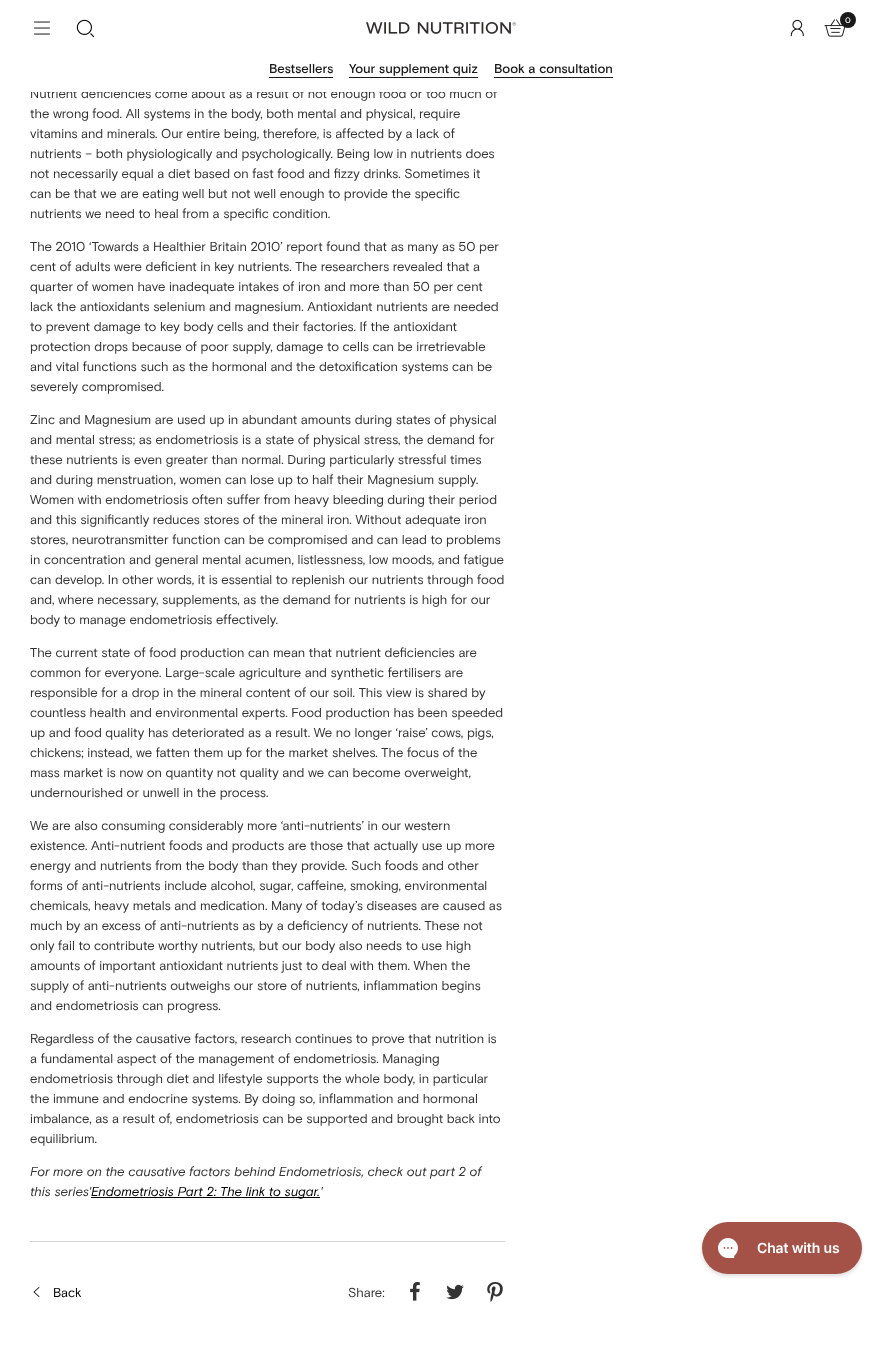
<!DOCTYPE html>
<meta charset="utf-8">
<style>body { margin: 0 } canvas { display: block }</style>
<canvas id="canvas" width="882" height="1346"></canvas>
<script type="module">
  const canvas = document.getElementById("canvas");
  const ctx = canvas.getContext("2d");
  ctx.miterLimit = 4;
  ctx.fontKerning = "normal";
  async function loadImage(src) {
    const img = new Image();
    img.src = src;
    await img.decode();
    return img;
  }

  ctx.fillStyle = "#ffffff";
  ctx.fillRect(0, 0, 882, 1346);
  ctx.font = "13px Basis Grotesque";
  ctx.fillStyle = "#333333";
  ctx.fillText("Nutrient deficiencies come about as a result of not enough food or too much of", 30, 98);
  ctx.fillStyle = "#ffffff";
  ctx.fillRect(31, 88, 466, 4);
  ctx.drawImage(await loadImage("img1.png"), 34, 21, 16, 14);
  ctx.drawImage(await loadImage("img2.png"), 76, 19, 19, 19);
  ctx.drawImage(await loadImage("img3.png"), 366, 22, 150, 12);
  ctx.drawImage(await loadImage("img4.png"), 790, 19, 14, 18);
  ctx.drawImage(await loadImage("img5.png"), 824, 19, 22, 18);
  ctx.fillStyle = "#191919";
  ctx.beginPath();
  ctx.arc(848, 20, 8, 0, Math.PI * 2);
  ctx.fill();
  ctx.letterSpacing = "1px";
  ctx.font = "500 8px Basis Grotesque";
  ctx.fillStyle = "#ffffff";
  ctx.fillText("0", 845, 23);
  ctx.letterSpacing = "0px";
  ctx.font = "500 13px Basis Grotesque";
  ctx.fillStyle = "#191919";
  ctx.fillText("Bestsellers", 269, 73);
  ctx.fillRect(269, 77, 64, 1);
  ctx.fillText("Your supplement quiz", 349, 73);
  ctx.fillRect(349, 77, 129, 1);
  ctx.fillText("Book a consultation", 494, 73);
  ctx.fillRect(494, 77, 119, 1);
  ctx.font = "13px Basis Grotesque";
  ctx.fillStyle = "#333333";
  ctx.fillText("the wrong food. All systems in the body, both mental and physical, require", 30, 118);
  ctx.fillText("vitamins and minerals. Our entire being, therefore, is affected by a lack of", 30, 138);
  ctx.fillText("nutrients – both physiologically and psychologically. Being low in nutrients does", 30, 158);
  ctx.fillText("not necessarily equal a diet based on fast food and fizzy drinks. Sometimes it", 30, 178);
  ctx.fillText("can be that we are eating well but not well enough to provide the specific", 30, 198);
  ctx.fillText("nutrients we need to heal from a specific condition.", 30, 218);
  ctx.fillText("The 2010 ‘Towards a Healthier Britain 2010’ report found that as many as 50 per", 30, 251);
  ctx.fillText("cent of adults were deficient in key nutrients. The researchers revealed that a", 30, 271);
  ctx.fillText("quarter of women have inadequate intakes of iron and more than 50 per cent", 30, 291);
  ctx.fillText("lack the antioxidants selenium and magnesium. Antioxidant nutrients are needed", 30, 311);
  ctx.fillText("to prevent damage to key body cells and their factories. If the antioxidant", 30, 331);
  ctx.fillText("protection drops because of poor supply, damage to cells can be irretrievable", 30, 351);
  ctx.fillText("and vital functions such as the hormonal and the detoxification systems can be", 30, 371);
  ctx.fillText("severely compromised.", 30, 391);
  ctx.fillText("Zinc and Magnesium are used up in abundant amounts during states of physical", 30, 424);
  ctx.fillText("and mental stress; as endometriosis is a state of physical stress, the demand for", 30, 444);
  ctx.fillText("these nutrients is even greater than normal. During particularly stressful times", 30, 464);
  ctx.fillText("and during menstruation, women can lose up to half their Magnesium supply.", 30, 484);
  ctx.fillText("Women with endometriosis often suffer from heavy bleeding during their period", 30, 504);
  ctx.fillText("and this significantly reduces stores of the mineral iron. Without adequate iron", 30, 524);
  ctx.fillText("stores, neurotransmitter function can be compromised and can lead to problems", 30, 544);
  ctx.fillText("in concentration and general mental acumen, listlessness, low moods, and fatigue", 30, 564);
  ctx.fillText("can develop. In other words, it is essential to replenish our nutrients through food", 30, 584);
  ctx.fillText("and, where necessary, supplements, as the demand for nutrients is high for our", 30, 604);
  ctx.fillText("body to manage endometriosis effectively.", 30, 624);
  ctx.fillText("The current state of food production can mean that nutrient deficiencies are", 30, 657);
  ctx.fillText("common for everyone. Large-scale agriculture and synthetic fertilisers are", 30, 677);
  ctx.fillText("responsible for a drop in the mineral content of our soil. This view is shared by", 30, 697);
  ctx.fillText("countless health and environmental experts. Food production has been speeded", 30, 717);
  ctx.fillText("up and food quality has deteriorated as a result. We no longer ‘raise’ cows, pigs,", 30, 737);
  ctx.fillText("chickens; instead, we fatten them up for the market shelves. The focus of the", 30, 757);
  ctx.fillText("mass market is now on quantity not quality and we can become overweight,", 30, 777);
  ctx.fillText("undernourished or unwell in the process.", 30, 797);
  ctx.fillText("We are also consuming considerably more ‘anti-nutrients’ in our western", 30, 830);
  ctx.fillText("existence. Anti-nutrient foods and products are those that actually use up more", 30, 850);
  ctx.fillText("energy and nutrients from the body than they provide. Such foods and other", 30, 870);
  ctx.fillText("forms of anti-nutrients include alcohol, sugar, caffeine, smoking, environmental", 30, 890);
  ctx.fillText("chemicals, heavy metals and medication. Many of today’s diseases are caused as", 30, 910);
  ctx.fillText("much by an excess of anti-nutrients as by a deficiency of nutrients. These not", 30, 930);
  ctx.fillText("only fail to contribute worthy nutrients, but our body also needs to use high", 30, 950);
  ctx.fillText("amounts of important antioxidant nutrients just to deal with them. When the", 30, 970);
  ctx.fillText("supply of anti-nutrients outweighs our store of nutrients, inflammation begins", 30, 990);
  ctx.fillText("and endometriosis can progress.", 30, 1010);
  ctx.fillText("Regardless of the causative factors, research continues to prove that nutrition is", 30, 1043);
  ctx.fillText("a fundamental aspect of the management of endometriosis. Managing", 30, 1063);
  ctx.fillText("endometriosis through diet and lifestyle supports the whole body, in particular", 30, 1083);
  ctx.fillText("the immune and endocrine systems. By doing so, inflammation and hormonal", 30, 1103);
  ctx.fillText("imbalance, as a result of, endometriosis can be supported and brought back into", 30, 1123);
  ctx.fillText("equilibrium.", 30, 1143);
  ctx.font = "italic 13px Basis Grotesque";
  ctx.fillText("For more on the causative factors behind Endometriosis, check out part 2 of", 30, 1176);
  ctx.fillText("this series'", 30, 1196);
  ctx.fillStyle = "#000000";
  ctx.fillRect(91, 1197, 229, 1);
  ctx.fillText("Endometriosis Part 2: The link to sugar.", 91, 1196);
  ctx.fillStyle = "#333333";
  ctx.fillText("'", 320, 1196);
  ctx.fillStyle = "#d2d2d2";
  ctx.fillRect(30, 1241, 475, 1);
  ctx.drawImage(await loadImage("img6.png"), 33, 1287, 7, 10);
  ctx.font = "13px Basis Grotesque";
  ctx.fillStyle = "#000000";
  ctx.fillText("Back", 53, 1297);
  ctx.fillStyle = "#333333";
  ctx.fillText("Share:", 348, 1297);
  ctx.drawImage(await loadImage("img7.png"), 410, 1282, 10, 19);
  ctx.drawImage(await loadImage("img8.png"), 446, 1284, 18, 16);
  ctx.drawImage(await loadImage("img9.png"), 487, 1282, 16, 20);
  ctx.drawImage(await loadImage("img10.png"), 700, 1222, 164, 56);
</script>
